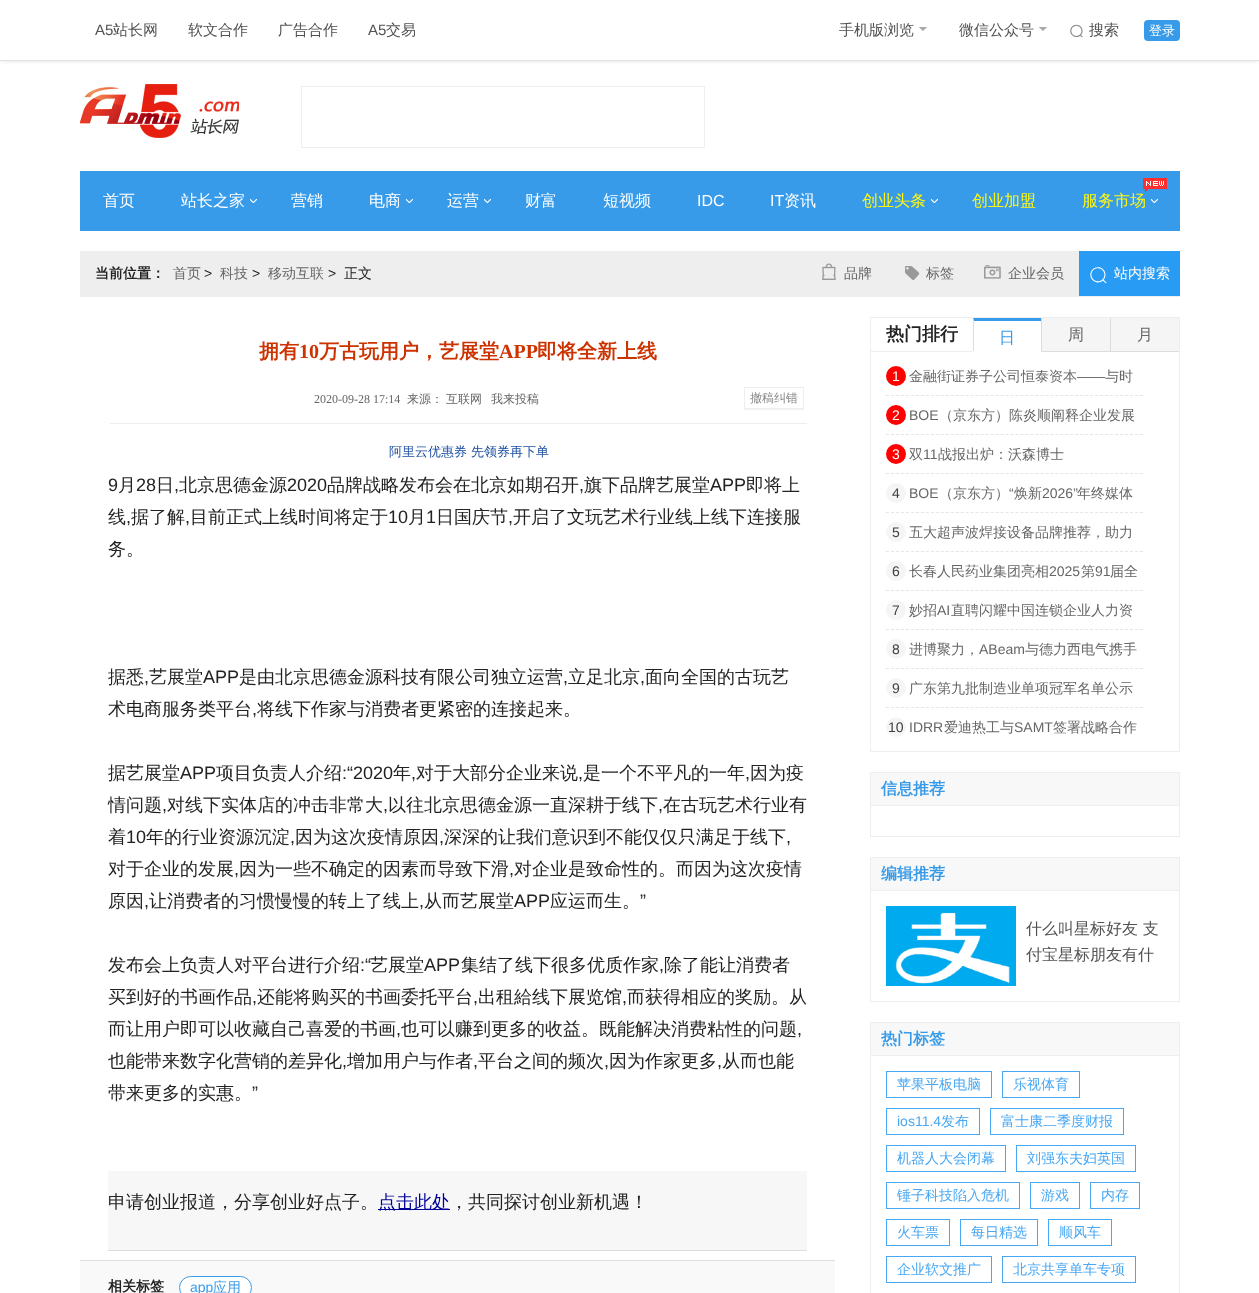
<!DOCTYPE html>
<meta charset="utf-8">
<style>body { margin: 0 } canvas { display: block }</style>
<canvas id="canvas" width="1259" height="1293"></canvas>
<script type="module">
  const canvas = document.getElementById("canvas");
  const ctx = canvas.getContext("2d");
  ctx.miterLimit = 4;
  ctx.fontKerning = "normal";
  async function loadImage(src) {
    const img = new Image();
    img.src = src;
    await img.decode();
    return img;
  }

  ctx.fillStyle = "#ffffff";
  ctx.fillRect(0, 0, 1259, 1293);
  ctx.save();
  ctx.beginPath();
  ctx.rect(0, 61, 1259, 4);
  ctx.clip();
  ctx.fillStyle = "rgba(201, 201, 201, 0.55)";
  ctx.filter = "blur(2px)";
  ctx.beginPath();
  ctx.rect(0, 0, 1259, 61);
  ctx.fill();
  ctx.filter = "none";
  ctx.restore();
  ctx.fillStyle = "#e2e2e2";
  ctx.fillRect(0, 60, 1259, 1);
  ctx.font = "15px Liberation Sans";
  ctx.fillStyle = "#525252";
  ctx.fillText("A5", 95, 35);
  ctx.font = "500 15px WenQuanYi Zen Hei";
  ctx.fillText("站长网", 113, 35);
  ctx.fillText("软文合作", 188, 35);
  ctx.fillText("广告合作", 278, 35);
  ctx.font = "15px Liberation Sans";
  ctx.fillText("A5", 368, 35);
  ctx.font = "500 15px WenQuanYi Zen Hei";
  ctx.fillText("交易", 386, 35);
  ctx.fillText("手机版浏览", 839, 35);
  ctx.drawImage(await loadImage("img1.png"), 919, 27, 10, 4);
  ctx.fillText("微信公众号", 959, 35);
  ctx.drawImage(await loadImage("img1.png"), 1039, 27, 10, 4);
  ctx.drawImage(await loadImage("img2.png"), 1070, 24, 13, 13);
  ctx.fillText("搜索", 1089, 35);
  ctx.fillStyle = "#379be9";
  ctx.beginPath();
  ctx.roundRect(1144, 20, 36, 21, 4);
  ctx.fill();
  ctx.font = "500 13px WenQuanYi Zen Hei";
  ctx.fillStyle = "#ffffff";
  ctx.fillText("登录", 1149, 35);
  ctx.drawImage(await loadImage("img3.png"), 80, 84, 159, 54);
  ctx.strokeStyle = "#eeeeee";
  ctx.strokeRect(301.5, 86.5, 403, 61);
  ctx.fillStyle = "#379be9";
  ctx.fillRect(80, 171, 1100, 60);
  ctx.font = "500 16px WenQuanYi Zen Hei";
  ctx.fillStyle = "#ffffff";
  ctx.fillText("首页", 103, 206);
  ctx.fillText("站长之家", 181, 206);
  ctx.drawImage(await loadImage("img4.png"), 250, 199, 7, 4);
  ctx.fillText("营销", 291, 206);
  ctx.fillText("电商", 369, 206);
  ctx.drawImage(await loadImage("img4.png"), 406, 199, 7, 4);
  ctx.fillText("运营", 447, 206);
  ctx.drawImage(await loadImage("img4.png"), 484, 199, 7, 4);
  ctx.fillText("财富", 525, 206);
  ctx.fillText("短视频", 603, 206);
  ctx.font = "16px Liberation Sans";
  ctx.fillText("IDC", 697, 206);
  ctx.fillText("IT", 770, 206);
  ctx.font = "500 16px WenQuanYi Zen Hei";
  ctx.fillText("资讯", 784, 206);
  ctx.fillStyle = "#fff711";
  ctx.fillText("创业头条", 862, 206);
  ctx.drawImage(await loadImage("img4.png"), 931, 199, 7, 4);
  ctx.fillText("创业加盟", 972, 206);
  ctx.drawImage(await loadImage("img5.png"), 1143, 178, 24, 14);
  ctx.fillText("服务市场", 1082, 206);
  ctx.drawImage(await loadImage("img4.png"), 1151, 199, 7, 4);
  ctx.fillStyle = "#eeeeee";
  ctx.fillRect(80, 251, 1100, 46);
  ctx.font = "bold 14px WenQuanYi Zen Hei";
  ctx.fillStyle = "#222222";
  ctx.fillText("当前位置：", 95, 278);
  ctx.font = "500 14px WenQuanYi Zen Hei";
  ctx.fillStyle = "#666666";
  ctx.fillText("首页", 173, 278);
  ctx.font = "14px Liberation Sans";
  ctx.fillStyle = "#222222";
  ctx.fillText(">", 204, 278);
  ctx.font = "500 14px WenQuanYi Zen Hei";
  ctx.fillStyle = "#666666";
  ctx.fillText("科技", 220, 278);
  ctx.font = "14px Liberation Sans";
  ctx.fillStyle = "#222222";
  ctx.fillText(">", 252, 278);
  ctx.font = "500 14px WenQuanYi Zen Hei";
  ctx.fillStyle = "#666666";
  ctx.fillText("移动互联", 268, 278);
  ctx.font = "14px Liberation Sans";
  ctx.fillStyle = "#222222";
  ctx.fillText(">", 328, 278);
  ctx.font = "500 14px WenQuanYi Zen Hei";
  ctx.fillText("正文", 344, 278);
  ctx.drawImage(await loadImage("img6.png"), 822, 263, 14, 17);
  ctx.fillStyle = "#666666";
  ctx.fillText("品牌", 844, 278);
  ctx.drawImage(await loadImage("img7.png"), 905, 266, 15, 15);
  ctx.fillText("标签", 926, 278);
  ctx.drawImage(await loadImage("img8.png"), 984, 265, 17, 14);
  ctx.fillText("企业会员", 1008, 278);
  ctx.fillStyle = "#289bf5";
  ctx.fillRect(1079, 251, 101, 45);
  ctx.drawImage(await loadImage("img9.png"), 1090, 267, 17, 16);
  ctx.fillStyle = "#ffffff";
  ctx.fillText("站内搜索", 1114, 278);
  ctx.font = "bold 20px WenQuanYi Zen Hei";
  ctx.fillStyle = "#cc3300";
  ctx.fillText("拥有", 259, 358);
  ctx.font = "bold 20px Liberation Serif";
  ctx.fillText("10", 299, 358);
  ctx.font = "bold 20px WenQuanYi Zen Hei";
  ctx.fillText("万古玩用户，艺展堂", 319, 358);
  ctx.font = "bold 20px Liberation Serif";
  ctx.fillText("APP", 499, 358);
  ctx.font = "bold 20px WenQuanYi Zen Hei";
  ctx.fillText("即将全新上线", 537, 358);
  ctx.fillStyle = "#eeeeee";
  ctx.fillRect(110, 423, 697, 1);
  ctx.font = "12px Liberation Serif";
  ctx.fillStyle = "#666666";
  ctx.fillText("2020-09-28 17:14", 314, 403);
  ctx.font = "500 12px WenQuanYi Zen Hei";
  ctx.fillText("来源：", 407, 403);
  ctx.fillText("互联网", 446, 403);
  ctx.fillText("我来投稿", 491, 403);
  ctx.save();
  ctx.beginPath();
  ctx.rect(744, 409, 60, 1);
  ctx.clip();
  ctx.fillStyle = "rgba(0, 0, 0, 0.05)";
  ctx.filter = "blur(0.5px)";
  ctx.beginPath();
  ctx.rect(744, 388, 60, 22);
  ctx.fill();
  ctx.filter = "none";
  ctx.restore();
  ctx.strokeRect(744.5, 387.5, 59, 21);
  ctx.fillStyle = "#888888";
  ctx.fillText("撤稿纠错", 750, 402);
  ctx.font = "500 13px WenQuanYi Zen Hei";
  ctx.fillStyle = "#1e50a2";
  ctx.fillText("阿里云优惠券 先领券再下单", 389, 456);
  ctx.font = "18px Liberation Sans";
  ctx.fillStyle = "#222222";
  ctx.fillText("9", 108, 491);
  ctx.font = "500 18px WenQuanYi Zen Hei";
  ctx.fillText("月", 118, 491);
  ctx.font = "18px Liberation Sans";
  ctx.fillText("28", 136, 491);
  ctx.font = "500 18px WenQuanYi Zen Hei";
  ctx.fillText("日", 156, 491);
  ctx.fillText("北京思德金源", 179, 491);
  ctx.font = "18px Liberation Sans";
  ctx.fillText("2020", 287, 491);
  ctx.font = "500 18px WenQuanYi Zen Hei";
  ctx.fillText("品牌战略发布会在北京如期召开", 327, 491);
  ctx.fillText("旗下品牌艺展堂", 584, 491);
  ctx.font = "18px Liberation Sans";
  ctx.fillText("APP", 710, 491);
  ctx.font = "500 18px WenQuanYi Zen Hei";
  ctx.fillText("即将上", 746, 491);
  ctx.font = "18px Liberation Sans";
  ctx.fillText(",", 174, 491);
  ctx.fillText(",", 579, 491);
  ctx.font = "500 18px WenQuanYi Zen Hei";
  ctx.fillText("线", 108, 523);
  ctx.fillText("据了解", 131, 523);
  ctx.fillText("目前正式上线时间将定于", 190, 523);
  ctx.font = "18px Liberation Sans";
  ctx.fillText("10", 388, 523);
  ctx.font = "500 18px WenQuanYi Zen Hei";
  ctx.fillText("月", 408, 523);
  ctx.font = "18px Liberation Sans";
  ctx.fillText("1", 426, 523);
  ctx.font = "500 18px WenQuanYi Zen Hei";
  ctx.fillText("日国庆节", 436, 523);
  ctx.fillText("开启了文玩艺术行业线上线下连接服", 513, 523);
  ctx.font = "18px Liberation Sans";
  ctx.fillText(",", 126, 523);
  ctx.fillText(",", 185, 523);
  ctx.fillText(",", 508, 523);
  ctx.font = "500 18px WenQuanYi Zen Hei";
  ctx.fillText("务。", 108, 555);
  ctx.fillText("据悉", 108, 683);
  ctx.fillText("艺展堂", 149, 683);
  ctx.font = "18px Liberation Sans";
  ctx.fillText("APP", 203, 683);
  ctx.font = "500 18px WenQuanYi Zen Hei";
  ctx.fillText("是由北京思德金源科技有限公司独立运营", 239, 683);
  ctx.fillText("立足北京", 568, 683);
  ctx.fillText("面向全国的古玩艺", 645, 683);
  ctx.font = "18px Liberation Sans";
  ctx.fillText(",", 144, 683);
  ctx.fillText(",", 563, 683);
  ctx.fillText(",", 640, 683);
  ctx.font = "500 18px WenQuanYi Zen Hei";
  ctx.fillText("术电商服务类平台", 108, 715);
  ctx.font = "18px Liberation Sans";
  ctx.fillText(",", 252, 715);
  ctx.font = "500 18px WenQuanYi Zen Hei";
  ctx.fillText("将线下作家与消费者更紧密的连接起来。", 257, 715);
  ctx.fillText("据艺展堂", 108, 779);
  ctx.font = "18px Liberation Sans";
  ctx.fillText("APP", 180, 779);
  ctx.font = "500 18px WenQuanYi Zen Hei";
  ctx.fillText("项目负责人介绍", 216, 779);
  ctx.font = "18px Liberation Sans";
  ctx.fillText(":“2020", 342, 779);
  ctx.font = "500 18px WenQuanYi Zen Hei";
  ctx.fillText("年", 393, 779);
  ctx.font = "18px Liberation Sans";
  ctx.fillText(",", 411, 779);
  ctx.font = "500 18px WenQuanYi Zen Hei";
  ctx.fillText("对于大部分企业来说", 416, 779);
  ctx.font = "18px Liberation Sans";
  ctx.fillText(",", 578, 779);
  ctx.font = "500 18px WenQuanYi Zen Hei";
  ctx.fillText("是一个不平凡的一年", 583, 779);
  ctx.font = "18px Liberation Sans";
  ctx.fillText(",", 745, 779);
  ctx.font = "500 18px WenQuanYi Zen Hei";
  ctx.fillText("因为疫", 750, 779);
  ctx.fillText("情问题", 108, 811);
  ctx.font = "18px Liberation Sans";
  ctx.fillText(",", 162, 811);
  ctx.font = "500 18px WenQuanYi Zen Hei";
  ctx.fillText("对线下实体店的冲击非常大", 167, 811);
  ctx.font = "18px Liberation Sans";
  ctx.fillText(",", 383, 811);
  ctx.font = "500 18px WenQuanYi Zen Hei";
  ctx.fillText("以往北京思德金源一直深耕于线下", 388, 811);
  ctx.font = "18px Liberation Sans";
  ctx.fillText(",", 658, 811);
  ctx.font = "500 18px WenQuanYi Zen Hei";
  ctx.fillText("在古玩艺术行业有", 663, 811);
  ctx.fillText("着", 108, 843);
  ctx.font = "18px Liberation Sans";
  ctx.fillText("10", 126, 843);
  ctx.font = "500 18px WenQuanYi Zen Hei";
  ctx.fillText("年的行业资源沉淀", 146, 843);
  ctx.font = "18px Liberation Sans";
  ctx.fillText(",", 290, 843);
  ctx.font = "500 18px WenQuanYi Zen Hei";
  ctx.fillText("因为这次疫情原因", 295, 843);
  ctx.font = "18px Liberation Sans";
  ctx.fillText(",", 439, 843);
  ctx.font = "500 18px WenQuanYi Zen Hei";
  ctx.fillText("深深的让我们意识到不能仅仅只满足于线下", 444, 843);
  ctx.font = "18px Liberation Sans";
  ctx.fillText(",", 786, 843);
  ctx.font = "500 18px WenQuanYi Zen Hei";
  ctx.fillText("对于企业的发展", 108, 875);
  ctx.font = "18px Liberation Sans";
  ctx.fillText(",", 234, 875);
  ctx.font = "500 18px WenQuanYi Zen Hei";
  ctx.fillText("因为一些不确定的因素而导致下滑", 239, 875);
  ctx.font = "18px Liberation Sans";
  ctx.fillText(",", 509, 875);
  ctx.font = "500 18px WenQuanYi Zen Hei";
  ctx.fillText("对企业是致命性的。而因为这次疫情", 514, 875);
  ctx.fillText("原因", 108, 907);
  ctx.fillText("让消费者的习惯慢慢的转上了线上", 149, 907);
  ctx.fillText("从而艺展堂", 424, 907);
  ctx.font = "18px Liberation Sans";
  ctx.fillText("APP", 514, 907);
  ctx.font = "500 18px WenQuanYi Zen Hei";
  ctx.fillText("应运而生。", 550, 907);
  ctx.font = "18px Liberation Sans";
  ctx.fillText("”", 640, 907);
  ctx.fillText(",", 144, 907);
  ctx.fillText(",", 419, 907);
  ctx.font = "500 18px WenQuanYi Zen Hei";
  ctx.fillText("发布会上负责人对平台进行介绍", 108, 971);
  ctx.font = "18px Liberation Sans";
  ctx.fillText(":“", 360, 971);
  ctx.font = "500 18px WenQuanYi Zen Hei";
  ctx.fillText("艺展堂", 370, 971);
  ctx.font = "18px Liberation Sans";
  ctx.fillText("APP", 424, 971);
  ctx.font = "500 18px WenQuanYi Zen Hei";
  ctx.fillText("集结了线下很多优质作家", 461, 971);
  ctx.fillText("除了能让消费者", 664, 971);
  ctx.font = "18px Liberation Sans";
  ctx.fillText(",", 659, 971);
  ctx.font = "500 18px WenQuanYi Zen Hei";
  ctx.fillText("买到好的书画作品", 108, 1003);
  ctx.font = "18px Liberation Sans";
  ctx.fillText(",", 252, 1003);
  ctx.font = "500 18px WenQuanYi Zen Hei";
  ctx.fillText("还能将购买的书画委托平台", 257, 1003);
  ctx.font = "18px Liberation Sans";
  ctx.fillText(",", 473, 1003);
  ctx.font = "500 18px WenQuanYi Zen Hei";
  ctx.fillText("出租給线下展览馆", 478, 1003);
  ctx.font = "18px Liberation Sans";
  ctx.fillText(",", 622, 1003);
  ctx.font = "500 18px WenQuanYi Zen Hei";
  ctx.fillText("而获得相应的奖励。从", 627, 1003);
  ctx.fillText("而让用户即可以收藏自己喜爱的书画", 108, 1035);
  ctx.font = "18px Liberation Sans";
  ctx.fillText(",", 396, 1035);
  ctx.font = "500 18px WenQuanYi Zen Hei";
  ctx.fillText("也可以赚到更多的收益。既能解决消费粘性的问题", 401, 1035);
  ctx.font = "18px Liberation Sans";
  ctx.fillText(",", 797, 1035);
  ctx.font = "500 18px WenQuanYi Zen Hei";
  ctx.fillText("也能带来数字化营销的差异化", 108, 1067);
  ctx.font = "18px Liberation Sans";
  ctx.fillText(",", 342, 1067);
  ctx.font = "500 18px WenQuanYi Zen Hei";
  ctx.fillText("增加用户与作者", 347, 1067);
  ctx.font = "18px Liberation Sans";
  ctx.fillText(",", 473, 1067);
  ctx.font = "500 18px WenQuanYi Zen Hei";
  ctx.fillText("平台之间的频次", 478, 1067);
  ctx.font = "18px Liberation Sans";
  ctx.fillText(",", 604, 1067);
  ctx.font = "500 18px WenQuanYi Zen Hei";
  ctx.fillText("因为作家更多", 609, 1067);
  ctx.font = "18px Liberation Sans";
  ctx.fillText(",", 717, 1067);
  ctx.font = "500 18px WenQuanYi Zen Hei";
  ctx.fillText("从而也能", 722, 1067);
  ctx.fillText("带来更多的实惠。", 108, 1099);
  ctx.font = "18px Liberation Sans";
  ctx.fillText("”", 252, 1099);
  ctx.fillStyle = "#f7f7f7";
  ctx.fillRect(108, 1171, 699, 79);
  ctx.fillStyle = "#dddddd";
  ctx.fillRect(108, 1250, 699, 1);
  ctx.font = "500 18px WenQuanYi Zen Hei";
  ctx.fillStyle = "#222222";
  ctx.fillText("申请创业报道，分享创业好点子。", 108, 1208);
  ctx.fillStyle = "#000099";
  ctx.fillRect(378, 1209, 72, 1);
  ctx.fillText("点击此处", 378, 1208);
  ctx.fillStyle = "#222222";
  ctx.fillText("，共同探讨创业新机遇！", 450, 1208);
  ctx.fillStyle = "#f9f9f9";
  ctx.fillRect(80, 1261, 755, 32);
  ctx.fillStyle = "#dddddd";
  ctx.fillRect(80, 1260, 755, 1);
  ctx.font = "bold 14px WenQuanYi Zen Hei";
  ctx.fillStyle = "#222222";
  ctx.fillText("相关标签", 108, 1291);
  ctx.fillStyle = "#ffffff";
  ctx.beginPath();
  ctx.roundRect(179.5, 1276.5, 72, 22, 11);
  ctx.fill();
  ctx.strokeStyle = "#379be9";
  ctx.stroke();
  ctx.font = "14px Liberation Sans";
  ctx.fillStyle = "#379be9";
  ctx.fillText("app", 190, 1292);
  ctx.font = "500 14px WenQuanYi Zen Hei";
  ctx.fillText("应用", 213, 1292);
  ctx.strokeStyle = "#eeeeee";
  ctx.strokeRect(870.5, 317.5, 309, 434);
  ctx.fillStyle = "#eeeeee";
  ctx.fillRect(871, 351, 102, 1);
  ctx.font = "bold 18px WenQuanYi Zen Hei";
  ctx.fillStyle = "#222222";
  ctx.fillText("热门排行", 886, 340);
  ctx.fillStyle = "#379be9";
  ctx.beginPath();
  ctx.moveTo(973, 318);
  ctx.lineTo(1041, 318);
  ctx.lineTo(1041, 321);
  ctx.lineTo(974, 321);
  ctx.closePath();
  ctx.fill();
  ctx.fillStyle = "#dddddd";
  ctx.beginPath();
  ctx.moveTo(973, 351);
  ctx.lineTo(973, 318);
  ctx.lineTo(974, 321);
  ctx.lineTo(974, 351);
  ctx.closePath();
  ctx.fill();
  ctx.font = "500 16px WenQuanYi Zen Hei";
  ctx.fillStyle = "#379be9";
  ctx.fillText("日", 999, 343);
  ctx.fillStyle = "#f5f5f5";
  ctx.fillRect(1042, 318, 68, 33);
  ctx.fillStyle = "#dddddd";
  ctx.fillRect(1041, 351, 138, 1);
  ctx.fillRect(1041, 318, 1, 34);
  ctx.fillStyle = "#666666";
  ctx.fillText("周", 1068, 340);
  ctx.fillStyle = "#f5f5f5";
  ctx.fillRect(1111, 318, 68, 33);
  ctx.fillStyle = "#dddddd";
  ctx.fillRect(1110, 318, 1, 34);
  ctx.fillStyle = "#666666";
  ctx.fillText("月", 1137, 340);
  ctx.beginPath();
  ctx.moveTo(886, 395.5);
  ctx.lineTo(1143, 395.5);
  ctx.strokeStyle = "#e5e5e5";
  ctx.setLineDash([3, 1.98]);
  ctx.stroke();
  ctx.fillStyle = "#ff0000";
  ctx.beginPath();
  ctx.arc(896, 376, 10, 0, Math.PI * 2);
  ctx.fill();
  ctx.font = "14px Liberation Sans";
  ctx.fillStyle = "#ffffff";
  ctx.fillText("1", 892, 381);
  ctx.font = "500 14px WenQuanYi Zen Hei";
  ctx.fillStyle = "#666666";
  ctx.fillText("金融街证券子公司恒泰资本", 909, 381);
  ctx.font = "14px Liberation Sans";
  ctx.fillText("——", 1077, 381);
  ctx.font = "500 14px WenQuanYi Zen Hei";
  ctx.fillText("与时", 1105, 381);
  ctx.beginPath();
  ctx.moveTo(886, 434.5);
  ctx.lineTo(1143, 434.5);
  ctx.stroke();
  ctx.fillStyle = "#ff0000";
  ctx.beginPath();
  ctx.arc(896, 415, 10, 0, Math.PI * 2);
  ctx.fill();
  ctx.font = "14px Liberation Sans";
  ctx.fillStyle = "#ffffff";
  ctx.fillText("2", 892, 420);
  ctx.fillStyle = "#666666";
  ctx.fillText("BOE", 909, 420);
  ctx.font = "500 14px WenQuanYi Zen Hei";
  ctx.fillText("（京东方）陈炎顺阐释企业发展", 939, 420);
  ctx.beginPath();
  ctx.moveTo(886, 473.5);
  ctx.lineTo(1143, 473.5);
  ctx.stroke();
  ctx.fillStyle = "#ff0000";
  ctx.beginPath();
  ctx.arc(896, 454, 10, 0, Math.PI * 2);
  ctx.fill();
  ctx.font = "14px Liberation Sans";
  ctx.fillStyle = "#ffffff";
  ctx.fillText("3", 892, 459);
  ctx.font = "500 14px WenQuanYi Zen Hei";
  ctx.fillStyle = "#666666";
  ctx.fillText("双", 909, 459);
  ctx.font = "14px Liberation Sans";
  ctx.fillText("11", 923, 459);
  ctx.font = "500 14px WenQuanYi Zen Hei";
  ctx.fillText("战报出炉：沃森博士", 938, 459);
  ctx.beginPath();
  ctx.moveTo(886, 512.5);
  ctx.lineTo(1143, 512.5);
  ctx.stroke();
  ctx.fillStyle = "#f5f5f5";
  ctx.beginPath();
  ctx.arc(896, 493, 10, 0, Math.PI * 2);
  ctx.fill();
  ctx.font = "14px Liberation Sans";
  ctx.fillStyle = "#404040";
  ctx.fillText("4", 892, 498);
  ctx.fillStyle = "#666666";
  ctx.fillText("BOE", 909, 498);
  ctx.font = "500 14px WenQuanYi Zen Hei";
  ctx.fillText("（京东方）", 939, 498);
  ctx.font = "14px Liberation Sans";
  ctx.fillText("“", 1009, 498);
  ctx.font = "500 14px WenQuanYi Zen Hei";
  ctx.fillText("焕新", 1014, 498);
  ctx.font = "14px Liberation Sans";
  ctx.fillText("2026”", 1042, 498);
  ctx.font = "500 14px WenQuanYi Zen Hei";
  ctx.fillText("年终媒体", 1077, 498);
  ctx.beginPath();
  ctx.moveTo(886, 551.5);
  ctx.lineTo(1143, 551.5);
  ctx.stroke();
  ctx.fillStyle = "#f5f5f5";
  ctx.beginPath();
  ctx.arc(896, 532, 10, 0, Math.PI * 2);
  ctx.fill();
  ctx.font = "14px Liberation Sans";
  ctx.fillStyle = "#404040";
  ctx.fillText("5", 892, 537);
  ctx.font = "500 14px WenQuanYi Zen Hei";
  ctx.fillStyle = "#666666";
  ctx.fillText("五大超声波焊接设备品牌推荐，助力", 909, 537);
  ctx.beginPath();
  ctx.moveTo(886, 590.5);
  ctx.lineTo(1143, 590.5);
  ctx.stroke();
  ctx.fillStyle = "#f5f5f5";
  ctx.beginPath();
  ctx.arc(896, 571, 10, 0, Math.PI * 2);
  ctx.fill();
  ctx.font = "14px Liberation Sans";
  ctx.fillStyle = "#404040";
  ctx.fillText("6", 892, 576);
  ctx.font = "500 14px WenQuanYi Zen Hei";
  ctx.fillStyle = "#666666";
  ctx.fillText("长春人民药业集团亮相", 909, 576);
  ctx.font = "14px Liberation Sans";
  ctx.fillText("2025", 1049, 576);
  ctx.font = "500 14px WenQuanYi Zen Hei";
  ctx.fillText("第", 1081, 576);
  ctx.font = "14px Liberation Sans";
  ctx.fillText("91", 1095, 576);
  ctx.font = "500 14px WenQuanYi Zen Hei";
  ctx.fillText("届全", 1110, 576);
  ctx.beginPath();
  ctx.moveTo(886, 629.5);
  ctx.lineTo(1143, 629.5);
  ctx.stroke();
  ctx.fillStyle = "#f5f5f5";
  ctx.beginPath();
  ctx.arc(896, 610, 10, 0, Math.PI * 2);
  ctx.fill();
  ctx.font = "14px Liberation Sans";
  ctx.fillStyle = "#404040";
  ctx.fillText("7", 892, 615);
  ctx.font = "500 14px WenQuanYi Zen Hei";
  ctx.fillStyle = "#666666";
  ctx.fillText("妙招", 909, 615);
  ctx.font = "14px Liberation Sans";
  ctx.fillText("AI", 937, 615);
  ctx.font = "500 14px WenQuanYi Zen Hei";
  ctx.fillText("直聘闪耀中国连锁企业人力资", 951, 615);
  ctx.beginPath();
  ctx.moveTo(886, 668.5);
  ctx.lineTo(1143, 668.5);
  ctx.stroke();
  ctx.fillStyle = "#f5f5f5";
  ctx.beginPath();
  ctx.arc(896, 649, 10, 0, Math.PI * 2);
  ctx.fill();
  ctx.font = "14px Liberation Sans";
  ctx.fillStyle = "#404040";
  ctx.fillText("8", 892, 654);
  ctx.font = "500 14px WenQuanYi Zen Hei";
  ctx.fillStyle = "#666666";
  ctx.fillText("进博聚力，", 909, 654);
  ctx.font = "14px Liberation Sans";
  ctx.fillText("ABeam", 979, 654);
  ctx.font = "500 14px WenQuanYi Zen Hei";
  ctx.fillText("与德力西电气携手", 1025, 654);
  ctx.beginPath();
  ctx.moveTo(886, 707.5);
  ctx.lineTo(1143, 707.5);
  ctx.stroke();
  ctx.fillStyle = "#f5f5f5";
  ctx.beginPath();
  ctx.arc(896, 688, 10, 0, Math.PI * 2);
  ctx.fill();
  ctx.font = "14px Liberation Sans";
  ctx.fillStyle = "#404040";
  ctx.fillText("9", 892, 693);
  ctx.font = "500 14px WenQuanYi Zen Hei";
  ctx.fillStyle = "#666666";
  ctx.fillText("广东第九批制造业单项冠军名单公示", 909, 693);
  ctx.fillStyle = "#f5f5f5";
  ctx.beginPath();
  ctx.arc(896, 727, 10, 0, Math.PI * 2);
  ctx.fill();
  ctx.font = "14px Liberation Sans";
  ctx.fillStyle = "#404040";
  ctx.fillText("10", 888, 732);
  ctx.fillStyle = "#666666";
  ctx.fillText("IDRR", 909, 732);
  ctx.font = "500 14px WenQuanYi Zen Hei";
  ctx.fillText("爱迪热工与", 944, 732);
  ctx.font = "14px Liberation Sans";
  ctx.fillText("SAMT", 1014, 732);
  ctx.font = "500 14px WenQuanYi Zen Hei";
  ctx.fillText("签署战略合作", 1053, 732);
  ctx.fillStyle = "#f8f8f8";
  ctx.beginPath();
  ctx.rect(870.5, 772.5, 309, 33);
  ctx.fill();
  ctx.strokeStyle = "#eeeeee";
  ctx.setLineDash([]);
  ctx.stroke();
  ctx.font = "bold 16px WenQuanYi Zen Hei";
  ctx.fillStyle = "#379be9";
  ctx.fillText("信息推荐", 881, 794);
  ctx.strokeRect(870.5, 805.5, 309, 31);
  ctx.fillStyle = "#f8f8f8";
  ctx.beginPath();
  ctx.rect(870.5, 857.5, 309, 33);
  ctx.fill();
  ctx.stroke();
  ctx.fillStyle = "#379be9";
  ctx.fillText("编辑推荐", 881, 879);
  ctx.strokeRect(870.5, 890.5, 309, 111);
  ctx.drawImage(await loadImage("img10.png"), 886, 906, 130, 80);
  ctx.font = "500 16px WenQuanYi Zen Hei";
  ctx.fillStyle = "#525252";
  ctx.fillText("什么叫星标好友 支", 1026, 934);
  ctx.fillText("付宝星标朋友有什", 1026, 960);
  ctx.fillStyle = "#f8f8f8";
  ctx.beginPath();
  ctx.rect(870.5, 1022.5, 309, 33);
  ctx.fill();
  ctx.stroke();
  ctx.font = "bold 16px WenQuanYi Zen Hei";
  ctx.fillStyle = "#379be9";
  ctx.fillText("热门标签", 881, 1044);
  ctx.strokeRect(870.5, 1055.5, 309, 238);
  ctx.strokeStyle = "#47a7f3";
  ctx.strokeRect(886.5, 1071.5, 105, 26);
  ctx.font = "500 14px WenQuanYi Zen Hei";
  ctx.fillStyle = "#47a7f3";
  ctx.fillText("苹果平板电脑", 897, 1089);
  ctx.strokeRect(1002.5, 1071.5, 77, 26);
  ctx.fillText("乐视体育", 1013, 1089);
  ctx.strokeRect(886.5, 1108.5, 93, 26);
  ctx.font = "14px Liberation Sans";
  ctx.fillText("ios11.4", 897, 1126);
  ctx.font = "500 14px WenQuanYi Zen Hei";
  ctx.fillText("发布", 941, 1126);
  ctx.strokeRect(990.5, 1108.5, 133, 26);
  ctx.fillText("富士康二季度财报", 1001, 1126);
  ctx.strokeRect(886.5, 1145.5, 119, 26);
  ctx.fillText("机器人大会闭幕", 897, 1163);
  ctx.strokeRect(1016.5, 1145.5, 119, 26);
  ctx.fillText("刘强东夫妇英国", 1027, 1163);
  ctx.strokeRect(886.5, 1182.5, 133, 26);
  ctx.fillText("锤子科技陷入危机", 897, 1200);
  ctx.strokeRect(1030.5, 1182.5, 49, 26);
  ctx.fillText("游戏", 1041, 1200);
  ctx.strokeRect(1090.5, 1182.5, 49, 26);
  ctx.fillText("内存", 1101, 1200);
  ctx.strokeRect(886.5, 1219.5, 63, 26);
  ctx.fillText("火车票", 897, 1237);
  ctx.strokeRect(960.5, 1219.5, 77, 26);
  ctx.fillText("每日精选", 971, 1237);
  ctx.strokeRect(1048.5, 1219.5, 63, 26);
  ctx.fillText("顺风车", 1059, 1237);
  ctx.strokeRect(886.5, 1256.5, 105, 26);
  ctx.fillText("企业软文推广", 897, 1274);
  ctx.strokeRect(1002.5, 1256.5, 133, 26);
  ctx.fillText("北京共享单车专项", 1013, 1274);
</script>
